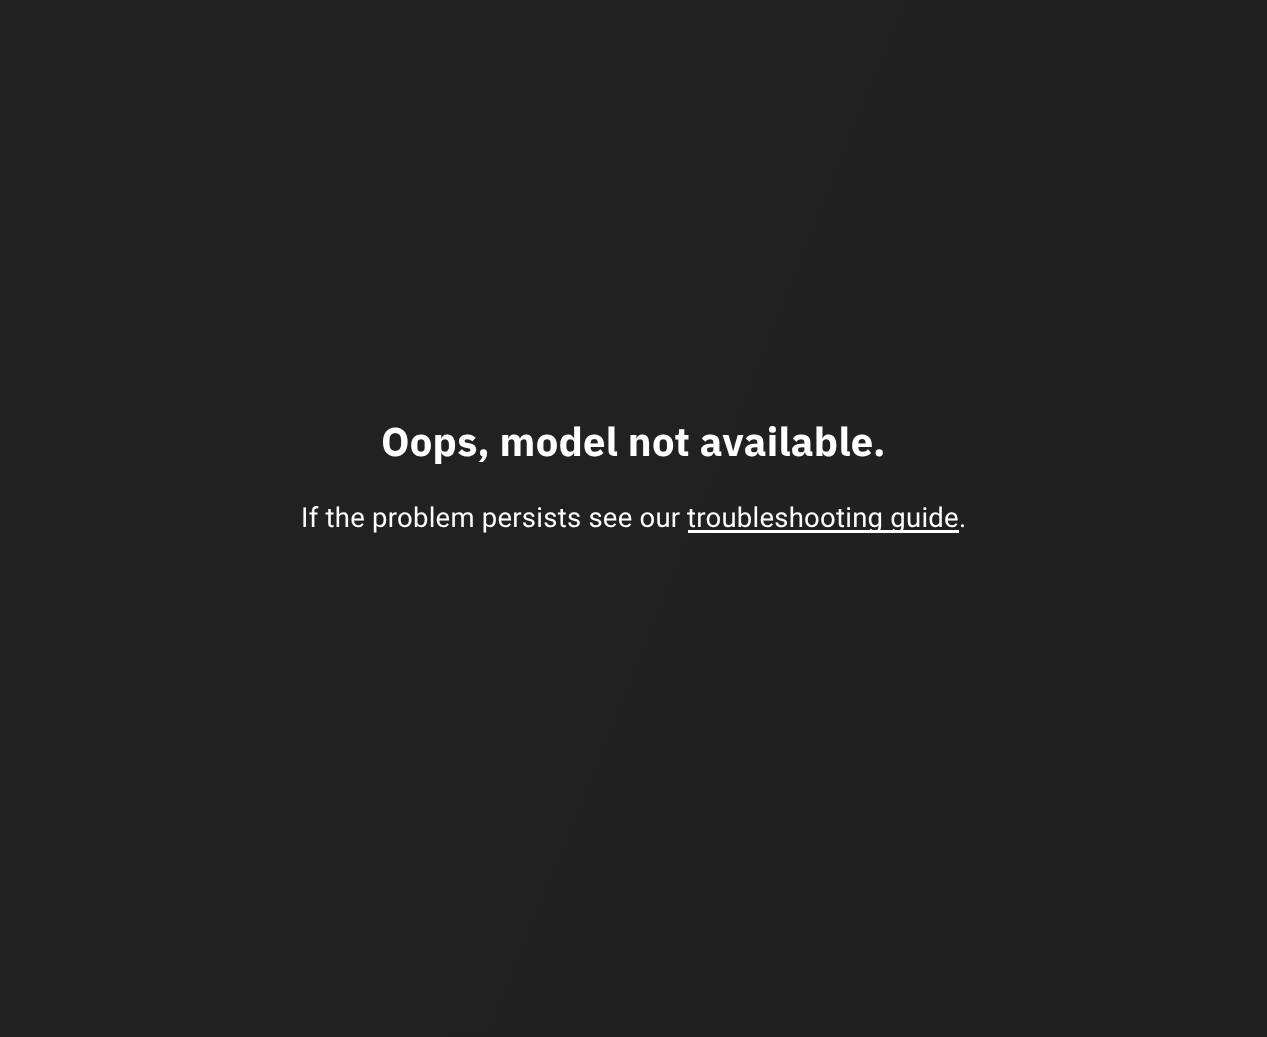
<!DOCTYPE html>
<meta charset="utf-8">
<style>body { margin: 0 } canvas { display: block }</style>
<canvas id="canvas" width="1267" height="1037"></canvas>
<script type="module">
  const canvas = document.getElementById("canvas");
  const ctx = canvas.getContext("2d");
  ctx.miterLimit = 4;
  ctx.fontKerning = "normal";
  let gradient;

  ctx.fillStyle = "#ffffff";
  ctx.fillRect(0, 0, 1267, 1037);
  gradient = ctx.createLinearGradient(-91, 226, 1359, 812);
  gradient.addColorStop(0, "#222222");
  gradient.addColorStop(1, "#202020");
  ctx.fillStyle = gradient;
  ctx.fillRect(0, 0, 1267, 1037);
  ctx.letterSpacing = "0.25px";
  ctx.font = "bold 40px IBM Plex Sans";
  ctx.fillStyle = "#ffffff";
  ctx.fillText("Oops, model not available.", 381, 456);
  ctx.font = "27.5px Roboto";
  ctx.fillText("If the problem persists see our", 301, 527);
  ctx.fillRect(688, 530, 271, 3);
  ctx.fillText("troubleshooting guide.", 687, 527);
</script>
